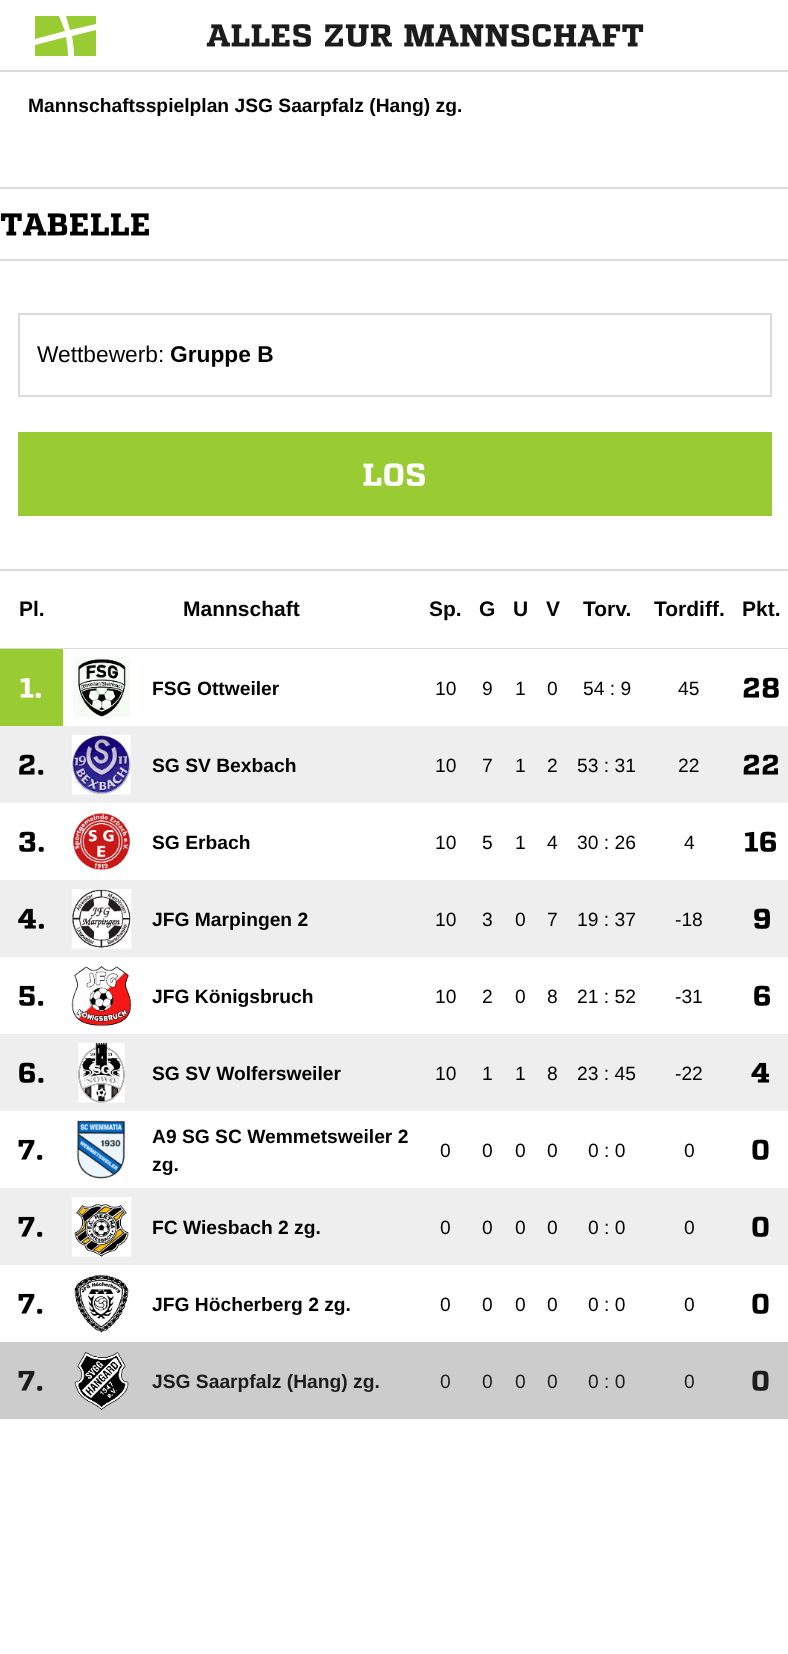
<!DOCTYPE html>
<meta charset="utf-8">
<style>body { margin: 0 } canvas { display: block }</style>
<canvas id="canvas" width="788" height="1654"></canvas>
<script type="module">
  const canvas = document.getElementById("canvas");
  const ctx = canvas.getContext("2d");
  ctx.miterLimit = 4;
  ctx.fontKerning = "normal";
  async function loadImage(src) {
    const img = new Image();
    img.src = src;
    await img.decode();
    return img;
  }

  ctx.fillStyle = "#ffffff";
  ctx.fillRect(0, 0, 788, 1654);
  ctx.fillStyle = "#dbdbdb";
  ctx.fillRect(0, 70, 788, 2);
  ctx.fillStyle = "#99cc33";
  ctx.beginPath();
  ctx.moveTo(66, 37);
  ctx.bezierCurveTo(67, 43, 68, 50, 68, 56);
  ctx.lineTo(35, 56);
  ctx.lineTo(35, 45);
  ctx.closePath();
  ctx.moveTo(35, 39);
  ctx.lineTo(35, 16);
  ctx.lineTo(59, 16);
  ctx.bezierCurveTo(61, 21, 63, 26, 65, 31);
  ctx.closePath();
  ctx.moveTo(74, 56);
  ctx.bezierCurveTo(74, 49, 73, 42, 72, 36);
  ctx.lineTo(96, 30);
  ctx.lineTo(96, 56);
  ctx.closePath();
  ctx.moveTo(96, 16);
  ctx.lineTo(96, 24);
  ctx.lineTo(70, 30);
  ctx.lineTo(66, 16);
  ctx.closePath();
  ctx.fill("evenodd");
  ctx.drawImage(await loadImage("img1.png"), 206, 24, 438, 23);
  ctx.font = "bold 19.25px Liberation Sans";
  ctx.fillStyle = "#000000";
  ctx.fillText("Mannschaftsspielplan JSG Saarpfalz (Hang) zg.", 28, 112);
  ctx.fillStyle = "#dbdbdb";
  ctx.fillRect(0, 187, 788, 2);
  ctx.fillRect(0, 259, 788, 2);
  ctx.drawImage(await loadImage("img2.png"), 0, 213, 149, 23);
  ctx.fillRect(0, 569, 788, 2);
  ctx.strokeStyle = "#dbdbdb";
  ctx.lineWidth = 2;
  ctx.strokeRect(19, 314, 752, 82);
  ctx.font = "22.75px Liberation Sans";
  ctx.fillStyle = "#000000";
  ctx.fillText("Wettbewerb:", 37, 362);
  ctx.font = "bold 22.75px Liberation Sans";
  ctx.fillText("Gruppe B", 170, 362);
  ctx.fillStyle = "#99cc33";
  ctx.fillRect(18, 432, 754, 84);
  ctx.drawImage(await loadImage("img3.png"), 363, 463, 62, 23);
  ctx.fillStyle = "#dbdbdb";
  ctx.fillRect(0, 648, 788, 1);
  ctx.font = "bold 21px Liberation Sans";
  ctx.fillStyle = "#000000";
  ctx.fillText("Pl.", 19, 616);
  ctx.fillText("Mannschaft", 183, 616);
  ctx.fillText("Sp.", 429, 616);
  ctx.fillText("G", 479, 616);
  ctx.fillText("U", 513, 616);
  ctx.fillText("V", 546, 616);
  ctx.fillText("Torv.", 583, 616);
  ctx.fillText("Tordiff.", 654, 616);
  ctx.fillText("Pkt.", 742, 616);
  ctx.fillStyle = "#99cc33";
  ctx.fillRect(0, 649, 63, 77);
  ctx.drawImage(await loadImage("img4.png"), 20, 677, 21, 21);
  ctx.drawImage(await loadImage("img5.png"), 73, 658, 57, 60);
  ctx.font = "bold 19.25px Liberation Sans";
  ctx.fillStyle = "#000000";
  ctx.fillText("FSG Ottweiler", 152, 695);
  ctx.font = "19.25px Liberation Sans";
  ctx.fillText("10", 435, 695);
  ctx.fillText("9", 482, 695);
  ctx.fillText("1", 515, 695);
  ctx.fillText("0", 547, 695);
  ctx.fillText("54 : 9", 583, 695);
  ctx.fillText("45", 678, 695);
  ctx.drawImage(await loadImage("img6.png"), 743, 677, 36, 21);
  ctx.fillStyle = "#eeeeee";
  ctx.fillRect(0, 726, 788, 77);
  ctx.drawImage(await loadImage("img7.png"), 19, 754, 25, 21);
  ctx.drawImage(await loadImage("img8.png"), 71, 735, 60, 60);
  ctx.font = "bold 19.25px Liberation Sans";
  ctx.fillStyle = "#000000";
  ctx.fillText("SG SV Bexbach", 152, 772);
  ctx.font = "19.25px Liberation Sans";
  ctx.fillText("10", 435, 772);
  ctx.fillText("7", 482, 772);
  ctx.fillText("1", 515, 772);
  ctx.fillText("2", 547, 772);
  ctx.fillText("53 : 31", 577, 772);
  ctx.fillText("22", 678, 772);
  ctx.drawImage(await loadImage("img9.png"), 743, 754, 35, 21);
  ctx.drawImage(await loadImage("img10.png"), 19, 831, 25, 21);
  ctx.drawImage(await loadImage("img11.png"), 73, 813, 57, 57);
  ctx.font = "bold 19.25px Liberation Sans";
  ctx.fillText("SG Erbach", 152, 849);
  ctx.font = "19.25px Liberation Sans";
  ctx.fillText("10", 435, 849);
  ctx.fillText("5", 482, 849);
  ctx.fillText("1", 515, 849);
  ctx.fillText("4", 547, 849);
  ctx.fillText("30 : 26", 577, 849);
  ctx.fillText("4", 684, 849);
  ctx.drawImage(await loadImage("img12.png"), 744, 831, 32, 21);
  ctx.fillStyle = "#eeeeee";
  ctx.fillRect(0, 880, 788, 77);
  ctx.drawImage(await loadImage("img13.png"), 18, 908, 26, 21);
  ctx.drawImage(await loadImage("img14.png"), 71, 889, 61, 60);
  ctx.font = "bold 19.25px Liberation Sans";
  ctx.fillStyle = "#000000";
  ctx.fillText("JFG Marpingen 2", 152, 926);
  ctx.font = "19.25px Liberation Sans";
  ctx.fillText("10", 435, 926);
  ctx.fillText("3", 482, 926);
  ctx.fillText("0", 515, 926);
  ctx.fillText("7", 547, 926);
  ctx.fillText("19 : 37", 577, 926);
  ctx.fillText("-18", 675, 926);
  ctx.drawImage(await loadImage("img15.png"), 754, 908, 16, 21);
  ctx.drawImage(await loadImage("img16.png"), 19, 985, 25, 21);
  ctx.drawImage(await loadImage("img17.png"), 71, 966, 61, 60);
  ctx.font = "bold 19.25px Liberation Sans";
  ctx.fillText("JFG Königsbruch", 152, 1003);
  ctx.font = "19.25px Liberation Sans";
  ctx.fillText("10", 435, 1003);
  ctx.fillText("2", 482, 1003);
  ctx.fillText("0", 515, 1003);
  ctx.fillText("8", 547, 1003);
  ctx.fillText("21 : 52", 577, 1003);
  ctx.fillText("-31", 675, 1003);
  ctx.drawImage(await loadImage("img18.png"), 754, 985, 16, 21);
  ctx.fillStyle = "#eeeeee";
  ctx.fillRect(0, 1034, 788, 77);
  ctx.drawImage(await loadImage("img19.png"), 19, 1062, 25, 21);
  ctx.drawImage(await loadImage("img20.png"), 78, 1043, 47, 60);
  ctx.font = "bold 19.25px Liberation Sans";
  ctx.fillStyle = "#000000";
  ctx.fillText("SG SV Wolfersweiler", 152, 1080);
  ctx.font = "19.25px Liberation Sans";
  ctx.fillText("10", 435, 1080);
  ctx.fillText("1", 482, 1080);
  ctx.fillText("1", 515, 1080);
  ctx.fillText("8", 547, 1080);
  ctx.fillText("23 : 45", 577, 1080);
  ctx.fillText("-22", 675, 1080);
  ctx.drawImage(await loadImage("img21.png"), 751, 1062, 19, 21);
  ctx.drawImage(await loadImage("img22.png"), 18, 1139, 25, 21);
  ctx.drawImage(await loadImage("img23.png"), 77, 1120, 49, 60);
  ctx.font = "bold 19.25px Liberation Sans";
  ctx.fillText("A9 SG SC Wemmetsweiler 2", 152, 1143);
  ctx.fillText("zg.", 152, 1171);
  ctx.font = "19.25px Liberation Sans";
  ctx.fillText("0", 440, 1157);
  ctx.fillText("0", 482, 1157);
  ctx.fillText("0", 515, 1157);
  ctx.fillText("0", 547, 1157);
  ctx.fillText("0 : 0", 588, 1157);
  ctx.fillText("0", 684, 1157);
  ctx.drawImage(await loadImage("img24.png"), 752, 1139, 17, 21);
  ctx.fillStyle = "#eeeeee";
  ctx.fillRect(0, 1188, 788, 77);
  ctx.drawImage(await loadImage("img25.png"), 18, 1216, 25, 21);
  ctx.drawImage(await loadImage("img26.png"), 71, 1197, 61, 60);
  ctx.font = "bold 19.25px Liberation Sans";
  ctx.fillStyle = "#000000";
  ctx.fillText("FC Wiesbach 2 zg.", 152, 1234);
  ctx.font = "19.25px Liberation Sans";
  ctx.fillText("0", 440, 1234);
  ctx.fillText("0", 482, 1234);
  ctx.fillText("0", 515, 1234);
  ctx.fillText("0", 547, 1234);
  ctx.fillText("0 : 0", 588, 1234);
  ctx.fillText("0", 684, 1234);
  ctx.drawImage(await loadImage("img27.png"), 752, 1216, 17, 21);
  ctx.drawImage(await loadImage("img22.png"), 18, 1293, 25, 21);
  ctx.drawImage(await loadImage("img28.png"), 74, 1274, 55, 59);
  ctx.font = "bold 19.25px Liberation Sans";
  ctx.fillText("JFG Höcherberg 2 zg.", 152, 1311);
  ctx.font = "19.25px Liberation Sans";
  ctx.fillText("0", 440, 1311);
  ctx.fillText("0", 482, 1311);
  ctx.fillText("0", 515, 1311);
  ctx.fillText("0", 547, 1311);
  ctx.fillText("0 : 0", 588, 1311);
  ctx.fillText("0", 684, 1311);
  ctx.drawImage(await loadImage("img24.png"), 752, 1293, 17, 21);
  ctx.fillStyle = "#cccccc";
  ctx.fillRect(0, 1342, 788, 77);
  ctx.drawImage(await loadImage("img29.png"), 18, 1370, 25, 21);
  ctx.drawImage(await loadImage("img30.png"), 74, 1352, 55, 58);
  ctx.font = "bold 19.25px Liberation Sans";
  ctx.fillStyle = "#1c1c1c";
  ctx.fillText("JSG Saarpfalz (Hang) zg.", 152, 1388);
  ctx.font = "19.25px Liberation Sans";
  ctx.fillText("0", 440, 1388);
  ctx.fillText("0", 482, 1388);
  ctx.fillText("0", 515, 1388);
  ctx.fillText("0", 547, 1388);
  ctx.fillText("0 : 0", 588, 1388);
  ctx.fillText("0", 684, 1388);
  ctx.drawImage(await loadImage("img31.png"), 752, 1370, 17, 21);
</script>
